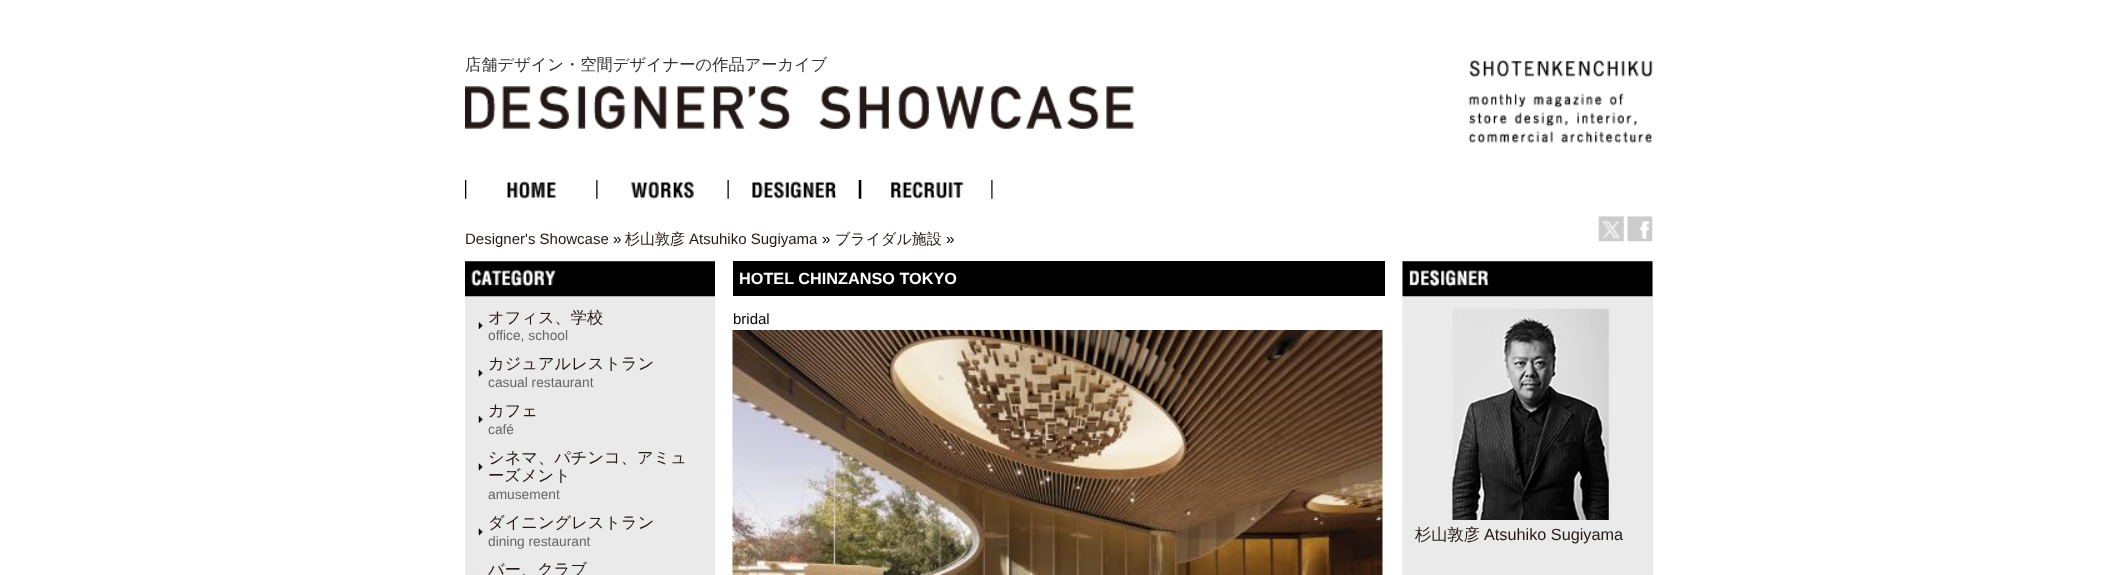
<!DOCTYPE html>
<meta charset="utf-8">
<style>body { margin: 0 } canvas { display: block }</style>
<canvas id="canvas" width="2117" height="575"></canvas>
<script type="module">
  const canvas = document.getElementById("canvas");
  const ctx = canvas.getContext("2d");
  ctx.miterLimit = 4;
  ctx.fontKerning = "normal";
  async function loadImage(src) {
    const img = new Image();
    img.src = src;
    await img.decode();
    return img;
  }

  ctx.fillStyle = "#ffffff";
  ctx.fillRect(0, 0, 2117, 575);
  ctx.font = "500 16.25px WenQuanYi Zen Hei";
  ctx.fillStyle = "#333333";
  ctx.fillText("店舗デザイン・空間デザイナーの作品アーカイブ", 465, 70);
  ctx.drawImage(await loadImage("img1.png"), 465, 86, 669, 43);
  ctx.drawImage(await loadImage("img2.png"), 1468, 60, 185, 83);
  ctx.drawImage(await loadImage("img3.png"), 1598, 216, 26, 26);
  ctx.drawImage(await loadImage("img4.png"), 1627, 216, 26, 26);
  ctx.drawImage(await loadImage("img5.png"), 465, 180, 92, 19);
  ctx.drawImage(await loadImage("img6.png"), 596, 180, 98, 19);
  ctx.drawImage(await loadImage("img7.png"), 727, 180, 133, 19);
  ctx.drawImage(await loadImage("img8.png"), 860, 180, 133, 19);
  ctx.font = "15px Liberation Sans";
  ctx.fillStyle = "#231815";
  ctx.fillText("Designer's Showcase", 465, 244);
  ctx.fillStyle = "#000000";
  ctx.fillText("»", 613, 244);
  ctx.font = "500 15px WenQuanYi Zen Hei";
  ctx.fillStyle = "#231815";
  ctx.fillText("杉山敦彦", 625, 244);
  ctx.font = "15px Liberation Sans";
  ctx.fillText("Atsuhiko Sugiyama", 689, 244);
  ctx.fillStyle = "#000000";
  ctx.fillText("»", 822, 244);
  ctx.font = "500 15px WenQuanYi Zen Hei";
  ctx.fillStyle = "#231815";
  ctx.fillText("ブライダル施設", 835, 244);
  ctx.font = "15px Liberation Sans";
  ctx.fillStyle = "#000000";
  ctx.fillText("»", 946, 244);
  ctx.drawImage(await loadImage("img9.png"), 715, 261, 688, 314);
  ctx.fillRect(733, 261, 652, 35);
  ctx.font = "bold 16.25px Liberation Sans";
  ctx.fillStyle = "#ffffff";
  ctx.fillText("HOTEL CHINZANSO TOKYO", 739, 284);
  ctx.font = "15px Liberation Sans";
  ctx.fillStyle = "#000000";
  ctx.fillText("bridal", 733, 324);
  ctx.drawImage(await loadImage("img10.png"), 732, 330, 651, 245);
  ctx.fillStyle = "#eaeaea";
  ctx.fillRect(465, 261, 250, 314);
  ctx.drawImage(await loadImage("img11.png"), 465, 261, 250, 36);
  ctx.drawImage(await loadImage("img12.png"), 478, 322, 5, 7);
  ctx.font = "500 16.25px WenQuanYi Zen Hei";
  ctx.fillStyle = "#231815";
  ctx.fillText("オフィス、学校", 488, 323);
  ctx.font = "13.75px Liberation Sans";
  ctx.fillStyle = "#666666";
  ctx.fillText("office, school", 488, 340);
  ctx.drawImage(await loadImage("img13.png"), 478, 369, 5, 8);
  ctx.font = "500 16.25px WenQuanYi Zen Hei";
  ctx.fillStyle = "#231815";
  ctx.fillText("カジュアルレストラン", 488, 369);
  ctx.font = "13.75px Liberation Sans";
  ctx.fillStyle = "#666666";
  ctx.fillText("casual restaurant", 488, 387);
  ctx.drawImage(await loadImage("img14.png"), 478, 416, 5, 7);
  ctx.font = "500 16.25px WenQuanYi Zen Hei";
  ctx.fillStyle = "#231815";
  ctx.fillText("カフェ", 488, 416);
  ctx.font = "13.75px Liberation Sans";
  ctx.fillStyle = "#666666";
  ctx.fillText("café", 488, 434);
  ctx.drawImage(await loadImage("img15.png"), 478, 463, 5, 8);
  ctx.font = "500 16.25px WenQuanYi Zen Hei";
  ctx.fillStyle = "#231815";
  ctx.fillText("シネマ、パチンコ、アミュ", 488, 463);
  ctx.fillText("ーズメント", 488, 481);
  ctx.font = "13.75px Liberation Sans";
  ctx.fillStyle = "#666666";
  ctx.fillText("amusement", 488, 499);
  ctx.drawImage(await loadImage("img15.png"), 478, 528, 5, 8);
  ctx.font = "500 16.25px WenQuanYi Zen Hei";
  ctx.fillStyle = "#231815";
  ctx.fillText("ダイニングレストラン", 488, 528);
  ctx.font = "13.75px Liberation Sans";
  ctx.fillStyle = "#666666";
  ctx.fillText("dining restaurant", 488, 546);
  ctx.fillStyle = "#dcdcdc";
  ctx.fillRect(479, 574, 1, 1);
  ctx.font = "500 16.25px WenQuanYi Zen Hei";
  ctx.fillStyle = "#231815";
  ctx.fillText("バー、クラブ", 488, 575);
  ctx.fillStyle = "#eaeaea";
  ctx.fillRect(1403, 261, 250, 314);
  ctx.drawImage(await loadImage("img16.png"), 1402, 261, 251, 36);
  ctx.drawImage(await loadImage("img17.png"), 1452, 308, 157, 212);
  ctx.fillStyle = "#231815";
  ctx.fillText("杉山敦彦", 1415, 540);
  ctx.font = "16.25px Liberation Sans";
  ctx.fillText("Atsuhiko Sugiyama", 1484, 540);
</script>
